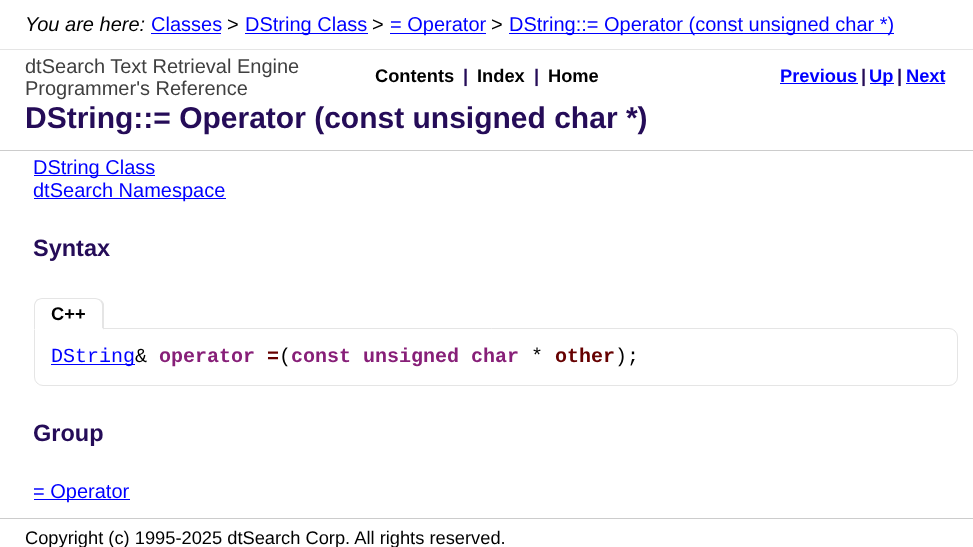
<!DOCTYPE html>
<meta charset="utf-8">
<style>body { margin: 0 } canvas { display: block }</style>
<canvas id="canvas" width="973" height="547"></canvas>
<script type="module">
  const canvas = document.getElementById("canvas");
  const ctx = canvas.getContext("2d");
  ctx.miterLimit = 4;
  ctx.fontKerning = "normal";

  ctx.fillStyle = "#ffffff";
  ctx.fillRect(0, 0, 973, 547);
  ctx.fillStyle = "#e5e5e5";
  ctx.fillRect(0, 49, 973, 1);
  ctx.font = "italic 20px Liberation Sans";
  ctx.fillStyle = "#000000";
  ctx.fillText("You are here:", 25, 31);
  ctx.font = "20px Liberation Sans";
  ctx.fillStyle = "#0000ff";
  ctx.fillText("Classes", 151, 31);
  ctx.fillRect(151, 33, 70, 1);
  ctx.fillStyle = "#000000";
  ctx.fillText(">", 227, 31);
  ctx.fillStyle = "#0000ff";
  ctx.fillRect(245, 33, 123, 1);
  ctx.fillText("DString Class", 245, 31);
  ctx.fillStyle = "#000000";
  ctx.fillText(">", 372, 31);
  ctx.fillStyle = "#0000ff";
  ctx.fillRect(390, 33, 96, 1);
  ctx.fillText("= Operator", 390, 31);
  ctx.fillStyle = "#000000";
  ctx.fillText(">", 491, 31);
  ctx.fillStyle = "#0000ff";
  ctx.fillRect(509, 33, 385, 1);
  ctx.fillText("DString::= Operator (const unsigned char *)", 509, 31);
  ctx.fillStyle = "#cccccc";
  ctx.fillRect(0, 150, 973, 1);
  ctx.fillStyle = "#404040";
  ctx.fillText("dtSearch Text Retrieval Engine", 25, 73);
  ctx.fillText("Programmer's Reference", 25, 95);
  ctx.font = "bold 18.3px Liberation Sans";
  ctx.fillStyle = "#000000";
  ctx.fillText("Contents", 375, 82);
  ctx.fillStyle = "#250c58";
  ctx.fillText("|", 463, 82);
  ctx.fillStyle = "#000000";
  ctx.fillText("Index", 477, 82);
  ctx.fillStyle = "#250c58";
  ctx.fillText("|", 534, 82);
  ctx.fillStyle = "#000000";
  ctx.fillText("Home", 548, 82);
  ctx.fillStyle = "#0000ff";
  ctx.fillText("Previous", 780, 82);
  ctx.fillRect(780, 83, 78, 1);
  ctx.fillStyle = "#250c58";
  ctx.fillText("|", 861, 82);
  ctx.fillStyle = "#0000ff";
  ctx.fillRect(870, 83, 24, 1);
  ctx.fillText("Up", 869, 82);
  ctx.fillStyle = "#250c58";
  ctx.fillText("|", 897, 82);
  ctx.fillStyle = "#0000ff";
  ctx.fillText("Next", 906, 82);
  ctx.fillRect(906, 83, 39, 1);
  ctx.font = "bold 30px Liberation Sans";
  ctx.fillStyle = "#250c58";
  ctx.fillText("DString::= Operator (const unsigned char *)", 25, 128);
  ctx.fillStyle = "#0000ff";
  ctx.fillRect(34, 175, 121, 1);
  ctx.font = "20px Liberation Sans";
  ctx.fillText("DString Class", 33, 174);
  ctx.fillRect(34, 198, 192, 1);
  ctx.fillText("dtSearch Namespace", 33, 197);
  ctx.font = "bold 23.5px Liberation Sans";
  ctx.fillStyle = "#250c58";
  ctx.fillText("Syntax", 33, 256);
  ctx.beginPath();
  ctx.roundRect(34.5, 328.5, 923, 57, [0, 8.5, 8.5, 8.5]);
  ctx.strokeStyle = "#e5e5e5";
  ctx.stroke();
  ctx.fillStyle = "#ffffff";
  ctx.beginPath();
  ctx.roundRect(34, 298, 70, 32, [9, 9, 0, 0]);
  ctx.fill();
  ctx.fillStyle = "#e5e5e5";
  ctx.beginPath();
  ctx.moveTo(42, 298);
  ctx.bezierCurveTo(40, 298, 38, 299, 36, 300);
  ctx.lineTo(37, 301);
  ctx.bezierCurveTo(38, 300, 40, 299, 42, 299);
  ctx.lineTo(95, 299);
  ctx.bezierCurveTo(97, 299, 99, 300, 100, 301);
  ctx.lineTo(101, 300);
  ctx.bezierCurveTo(100, 299, 97, 298, 95, 298);
  ctx.closePath();
  ctx.fill();
  ctx.beginPath();
  ctx.moveTo(101, 300);
  ctx.bezierCurveTo(102.5, 301, 103.5, 302.5, 104, 304);
  ctx.lineTo(104, 330);
  ctx.lineTo(102, 328);
  ctx.lineTo(102, 306);
  ctx.bezierCurveTo(102, 304, 101.5, 302.5, 100, 301);
  ctx.closePath();
  ctx.fill();
  ctx.fillStyle = "#ffffff";
  ctx.beginPath();
  ctx.moveTo(104, 330);
  ctx.lineTo(102, 328);
  ctx.lineTo(102, 329);
  ctx.lineTo(35, 329);
  ctx.lineTo(34, 330);
  ctx.closePath();
  ctx.fill();
  ctx.fillStyle = "#e5e5e5";
  ctx.beginPath();
  ctx.moveTo(36.5, 300);
  ctx.bezierCurveTo(35, 301.5, 34, 303.5, 34, 306);
  ctx.lineTo(34, 330);
  ctx.lineTo(35, 329);
  ctx.lineTo(35, 306);
  ctx.bezierCurveTo(35, 304, 36, 302, 37, 301);
  ctx.closePath();
  ctx.fill();
  ctx.font = "bold 18.3px Liberation Sans";
  ctx.fillStyle = "#000000";
  ctx.fillText("C++", 51, 320);
  ctx.fillStyle = "#0000ff";
  ctx.fillRect(51, 364, 84, 1);
  ctx.font = "20px Liberation Mono";
  ctx.fillText("DString", 51, 362);
  ctx.fillStyle = "#000000";
  ctx.fillText("&", 135, 362);
  ctx.font = "bold 20px Liberation Mono";
  ctx.fillStyle = "#871f78";
  ctx.fillText("operator", 159, 362);
  ctx.fillStyle = "#660000";
  ctx.fillText("=", 267, 362);
  ctx.font = "20px Liberation Mono";
  ctx.fillStyle = "#000000";
  ctx.fillText("(", 279, 362);
  ctx.font = "bold 20px Liberation Mono";
  ctx.fillStyle = "#871f78";
  ctx.fillText("const unsigned char", 291, 362);
  ctx.font = "20px Liberation Mono";
  ctx.fillStyle = "#000000";
  ctx.fillText("*", 531, 362);
  ctx.font = "bold 20px Liberation Mono";
  ctx.fillStyle = "#660000";
  ctx.fillText("other", 555, 362);
  ctx.font = "20px Liberation Mono";
  ctx.fillStyle = "#000000";
  ctx.fillText(");", 615, 362);
  ctx.font = "bold 23.5px Liberation Sans";
  ctx.fillStyle = "#250c58";
  ctx.fillText("Group", 33, 441);
  ctx.fillStyle = "#0000ff";
  ctx.fillRect(34, 499, 96, 1);
  ctx.font = "20px Liberation Sans";
  ctx.fillText("= Operator", 33, 498);
  ctx.fillStyle = "#cccccc";
  ctx.fillRect(0, 518, 973, 1);
  ctx.font = "18.3px Liberation Sans";
  ctx.fillStyle = "#000000";
  ctx.fillText("Copyright (c) 1995-2025 dtSearch Corp. All rights reserved.", 25, 544);
</script>
